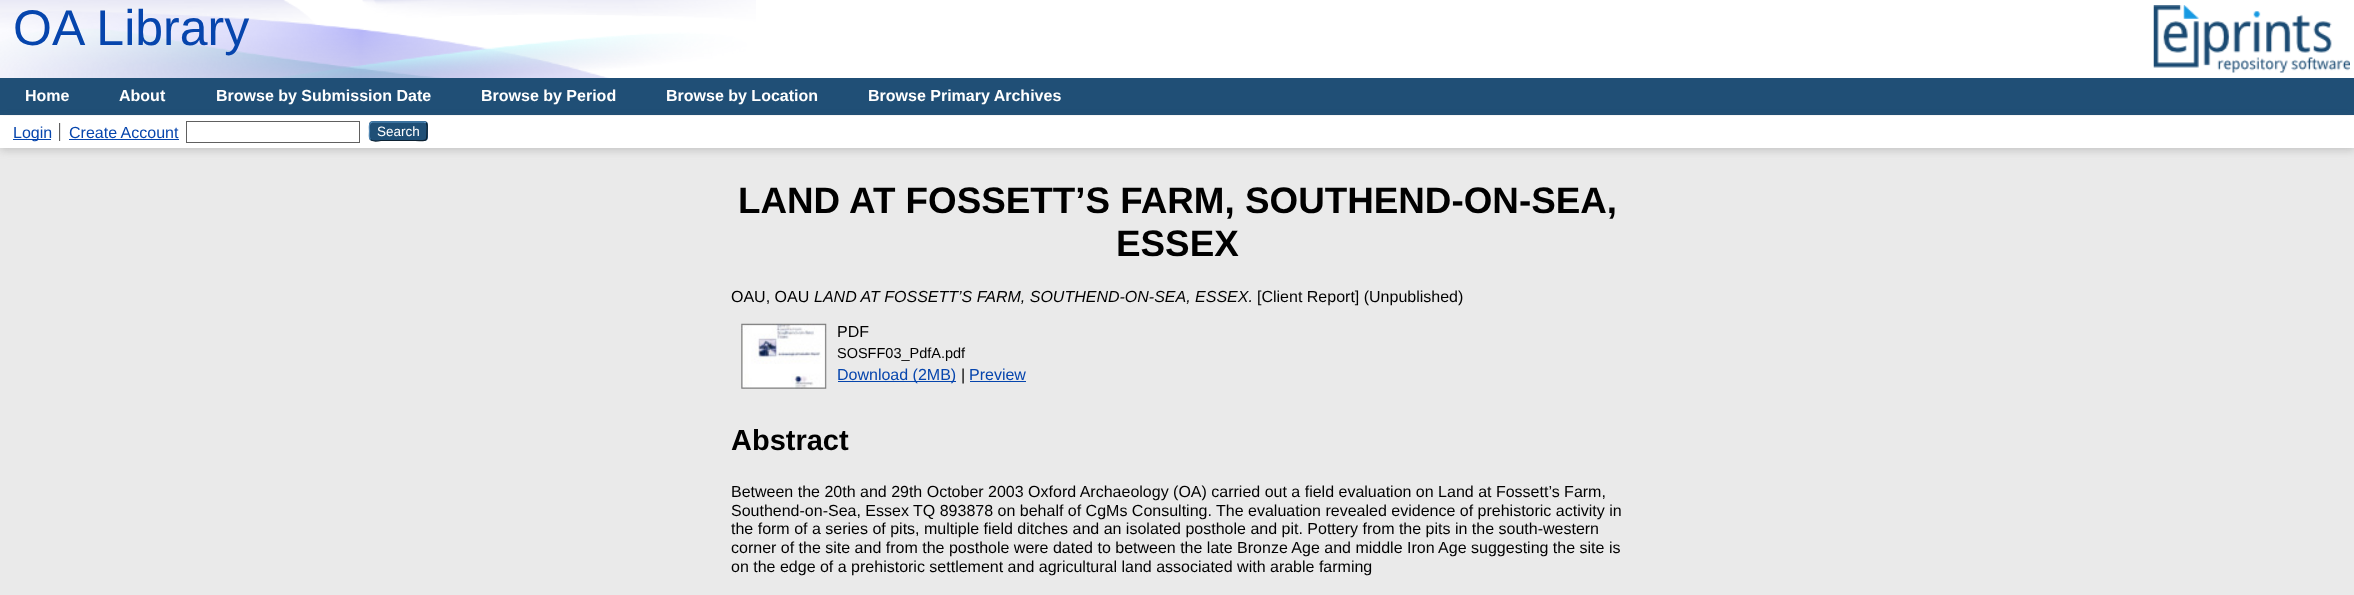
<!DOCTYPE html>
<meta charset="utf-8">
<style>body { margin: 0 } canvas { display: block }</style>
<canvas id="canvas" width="2354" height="595"></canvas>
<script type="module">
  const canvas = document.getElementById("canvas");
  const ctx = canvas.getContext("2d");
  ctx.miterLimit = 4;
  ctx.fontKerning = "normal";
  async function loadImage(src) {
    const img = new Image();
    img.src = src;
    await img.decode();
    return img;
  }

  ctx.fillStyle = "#eaeaea";
  ctx.fillRect(0, 0, 2354, 595);
  ctx.fillStyle = "#ffffff";
  ctx.fillRect(0, 0, 2354, 78);
  ctx.drawImage(await loadImage("img1.png"), 0, 0, 756, 78);
  ctx.font = "50px Liberation Sans";
  ctx.fillStyle = "#0645ad";
  ctx.fillText("OA Library", 13, 45);
  ctx.drawImage(await loadImage("img2.png"), 2153, 5, 197, 68);
  ctx.fillStyle = "#204f76";
  ctx.fillRect(0, 78, 2354, 37);
  ctx.fillStyle = "#ffffff";
  ctx.fillRect(0, 115, 2354, 1);
  ctx.font = "bold 16px Liberation Sans";
  ctx.fillText("Home", 25, 101);
  ctx.fillText("About", 119, 101);
  ctx.fillText("Browse by Submission Date", 216, 101);
  ctx.fillText("Browse by Period", 481, 101);
  ctx.fillText("Browse by Location", 666, 101);
  ctx.fillText("Browse Primary Archives", 868, 101);
  ctx.fillStyle = "rgba(100, 100, 100, 0.3)";
  ctx.filter = "blur(4px)";
  ctx.beginPath();
  ctx.rect(0, 119, 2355, 31);
  ctx.fill();
  ctx.filter = "none";
  ctx.fillStyle = "#ffffff";
  ctx.fillRect(0, 116, 2354, 32);
  ctx.fillStyle = "#0645ad";
  ctx.fillRect(13, 139, 38, 1);
  ctx.font = "16px Liberation Sans";
  ctx.fillText("Login", 13, 138);
  ctx.fillStyle = "#606060";
  ctx.fillRect(59, 123, 1, 18);
  ctx.fillStyle = "#0645ad";
  ctx.fillText("Create Account", 69, 138);
  ctx.fillStyle = "#e8e8e8";
  ctx.fillRect(60, 123, 1, 18);
  ctx.fillStyle = "#0645ad";
  ctx.fillRect(69, 139, 110, 1);
  ctx.strokeStyle = "#606060";
  ctx.strokeRect(186.5, 121.5, 173, 21);
  ctx.fillStyle = "#1f4f76";
  ctx.beginPath();
  ctx.roundRect(369, 121, 59, 20, 4);
  ctx.fill();
  ctx.beginPath();
  ctx.moveTo(370.5, 123);
  ctx.lineTo(372, 122);
  ctx.lineTo(424, 122);
  ctx.lineTo(426, 123);
  ctx.strokeStyle = "#5b97c7";
  ctx.lineWidth = 1.2;
  ctx.stroke();
  ctx.beginPath();
  ctx.moveTo(426, 123);
  ctx.bezierCurveTo(428, 125, 427, 129, 427, 131);
  ctx.bezierCurveTo(427, 142.5, 427, 140.5, 415, 140.5);
  ctx.lineTo(381, 140.5);
  ctx.bezierCurveTo(381, 140.5, 372.5, 142, 370.5, 139.5);
  ctx.strokeStyle = "#0d2131";
  ctx.stroke();
  ctx.beginPath();
  ctx.moveTo(370.5, 139.5);
  ctx.bezierCurveTo(368.5, 138, 369.5, 133.5, 369.5, 131);
  ctx.bezierCurveTo(369.5, 129, 368.5, 124.5, 370.5, 123);
  ctx.strokeStyle = "#5287b3";
  ctx.stroke();
  ctx.font = "13.5px Liberation Sans";
  ctx.fillStyle = "#ffffff";
  ctx.fillText("Search", 377, 136);
  ctx.font = "bold 36.8px Liberation Sans";
  ctx.fillStyle = "#000000";
  ctx.fillText("LAND AT FOSSETT’S FARM, SOUTHEND-ON-SEA,", 738, 213);
  ctx.fillText("ESSEX", 1116, 256);
  ctx.font = "16px Liberation Sans";
  ctx.fillText("OAU, OAU", 731, 302);
  ctx.font = "italic 16px Liberation Sans";
  ctx.fillText("LAND AT FOSSETT’S FARM, SOUTHEND-ON-SEA, ESSEX.", 814, 302);
  ctx.font = "16px Liberation Sans";
  ctx.fillText("[Client Report] (Unpublished)", 1257, 302);
  ctx.drawImage(await loadImage("img3.png"), 741, 323, 86, 66);
  ctx.fillText("PDF", 837, 337);
  ctx.font = "14.5px Liberation Sans";
  ctx.fillText("SOSFF03_PdfA.pdf", 837, 358);
  ctx.fillStyle = "#0645ad";
  ctx.fillRect(838, 381, 118, 1);
  ctx.font = "16px Liberation Sans";
  ctx.fillText("Download (2MB)", 837, 380);
  ctx.fillStyle = "#000000";
  ctx.fillText("|", 961, 380);
  ctx.fillStyle = "#0645ad";
  ctx.fillText("Preview", 969, 380);
  ctx.fillRect(970, 381, 56, 1);
  ctx.font = "bold 29px Liberation Sans";
  ctx.fillStyle = "#000000";
  ctx.fillText("Abstract", 731, 450);
  ctx.font = "16px Liberation Sans";
  ctx.fillText("Between the 20th and 29th October 2003 Oxford Archaeology (OA) carried out a field evaluation on Land at Fossett’s Farm,", 731, 497);
  ctx.fillText("Southend-on-Sea, Essex TQ 893878 on behalf of CgMs Consulting. The evaluation revealed evidence of prehistoric activity in", 731, 516);
  ctx.fillText("the form of a series of pits, multiple field ditches and an isolated posthole and pit. Pottery from the pits in the south-western", 731, 534);
  ctx.fillText("corner of the site and from the posthole were dated to between the late Bronze Age and middle Iron Age suggesting the site is", 731, 553);
  ctx.fillText("on the edge of a prehistoric settlement and agricultural land associated with arable farming", 731, 572);
</script>
